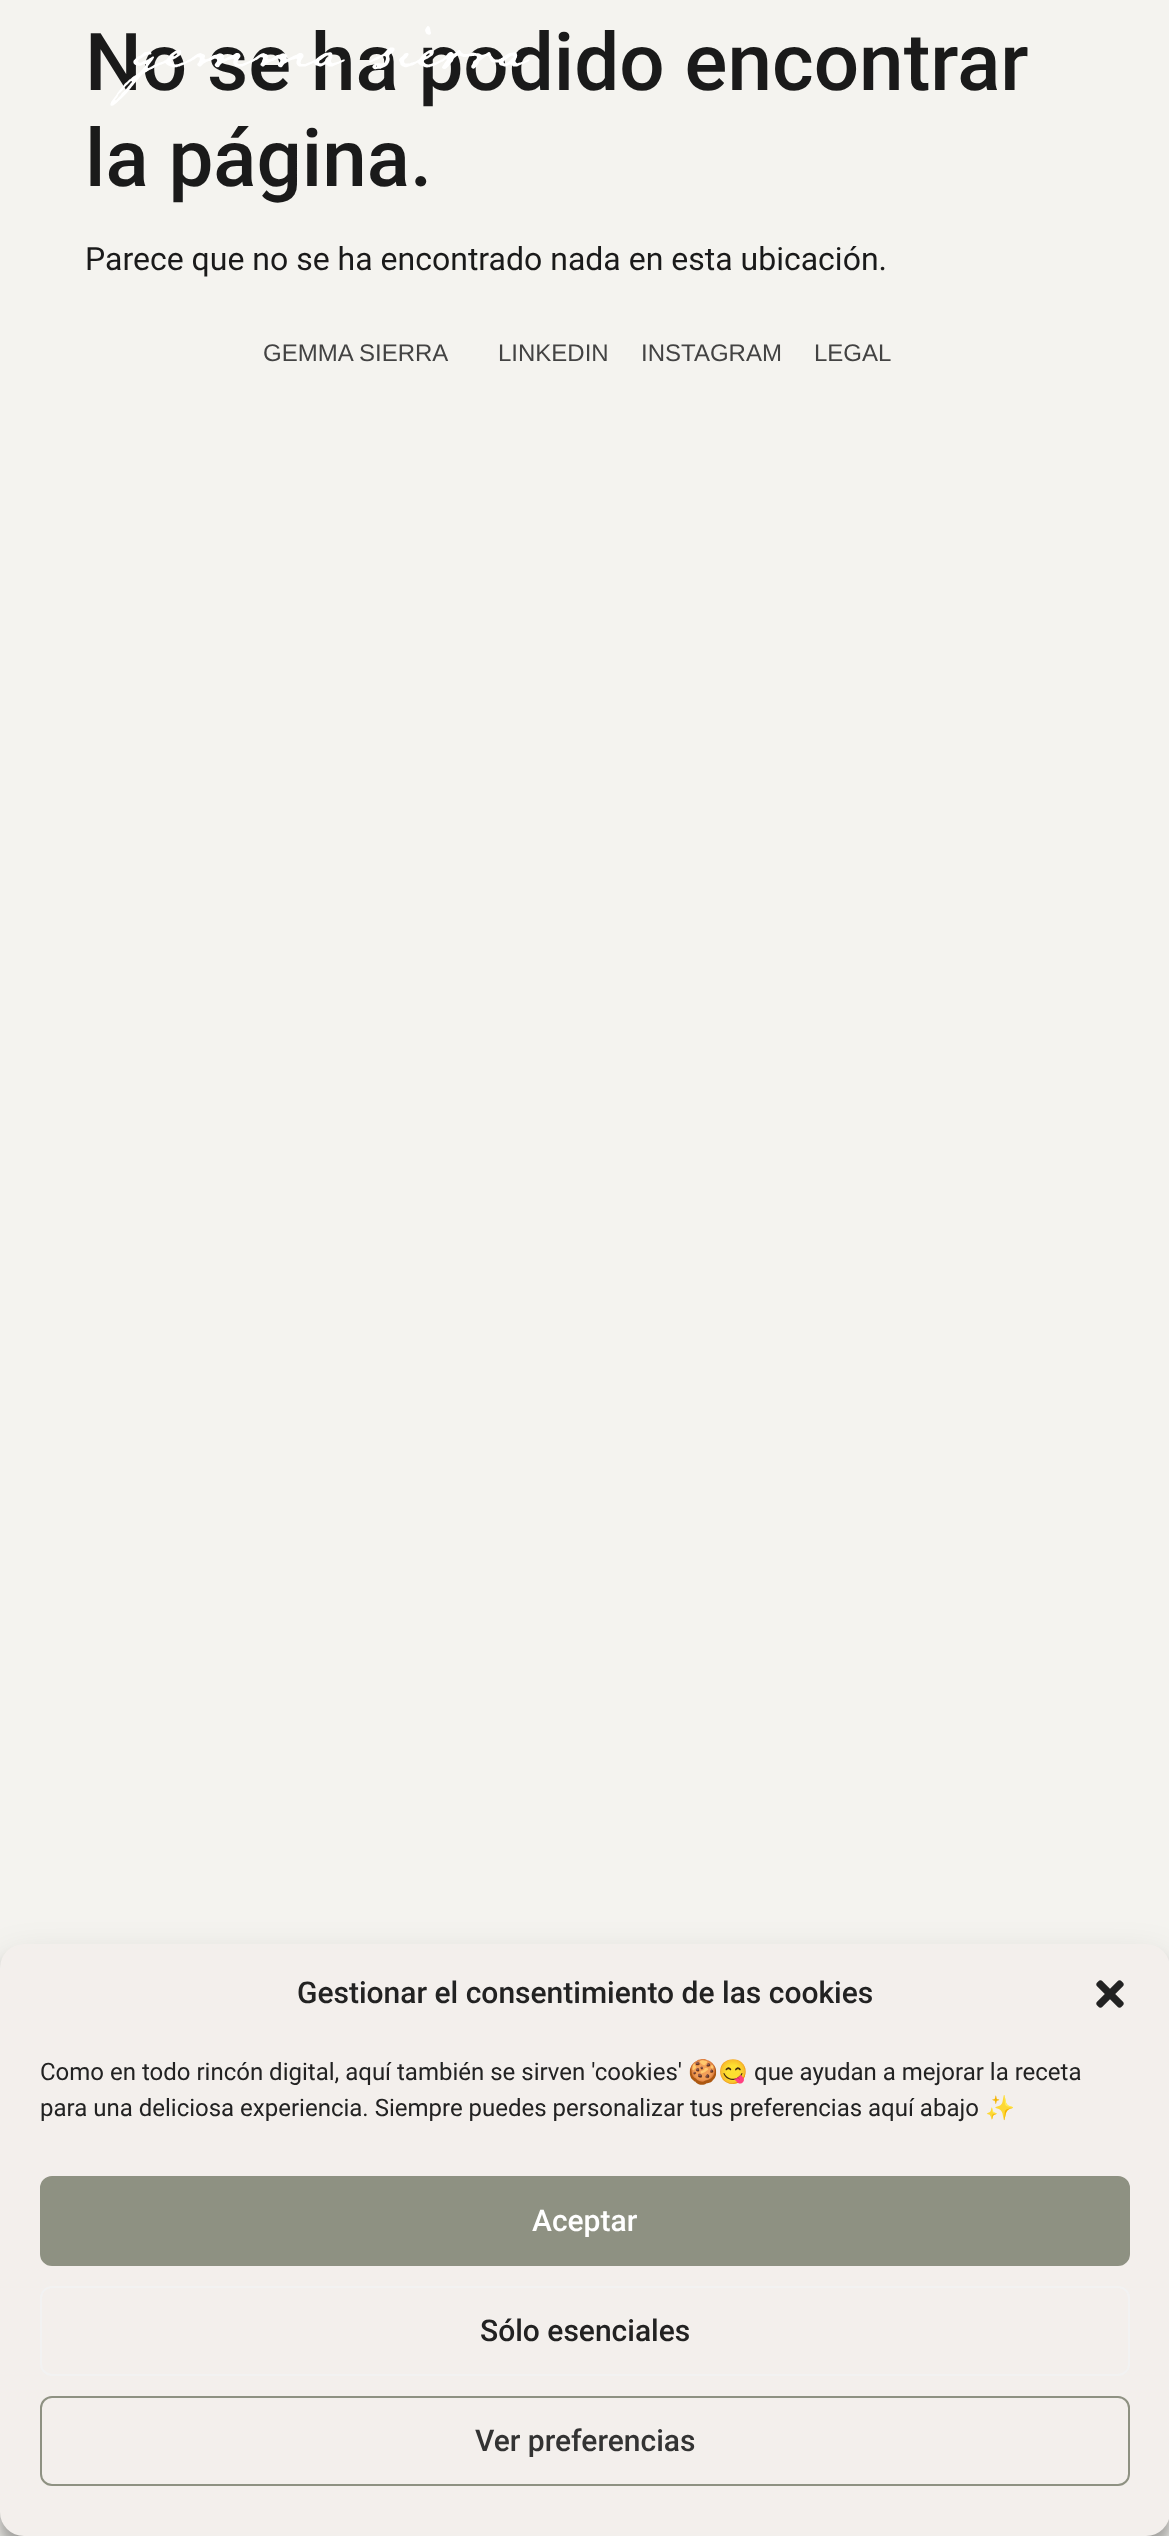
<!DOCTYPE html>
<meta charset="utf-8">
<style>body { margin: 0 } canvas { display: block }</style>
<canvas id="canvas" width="1169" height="2536"></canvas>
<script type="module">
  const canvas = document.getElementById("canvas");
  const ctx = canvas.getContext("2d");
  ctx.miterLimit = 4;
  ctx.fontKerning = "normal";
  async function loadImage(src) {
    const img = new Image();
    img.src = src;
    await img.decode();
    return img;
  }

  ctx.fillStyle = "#f4f3ef";
  ctx.fillRect(0, 0, 1169, 2536);
  ctx.font = "500 80px Roboto";
  ctx.fillStyle = "#1a1a1a";
  ctx.fillText("No se ha podido encontrar", 85, 90);
  ctx.drawImage(await loadImage("img1.png"), 110, 26, 420, 80);
  ctx.fillText("la página.", 85, 186);
  ctx.font = "32px Roboto";
  ctx.fillText("Parece que no se ha encontrado nada en esta ubicación.", 85, 270);
  ctx.font = "24px Liberation Sans";
  ctx.fillStyle = "#434343";
  ctx.fillText("GEMMA SIERRA", 263, 361);
  ctx.fillText("LINKEDIN", 498, 361);
  ctx.fillText("INSTAGRAM", 641, 361);
  ctx.fillText("LEGAL", 814, 361);
  ctx.fillStyle = "rgba(0, 0, 0, 0.23)";
  ctx.filter = "blur(6px)";
  ctx.beginPath();
  ctx.roundRect(0, 1956, 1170, 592, 24);
  ctx.fill();
  ctx.filter = "none";
  ctx.fillStyle = "rgba(0, 0, 0, 0.19)";
  ctx.filter = "blur(20px)";
  ctx.beginPath();
  ctx.roundRect(0, 1964, 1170, 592, 24);
  ctx.fill();
  ctx.filter = "none";
  ctx.fillStyle = "#f3efec";
  ctx.beginPath();
  ctx.roundRect(0, 1944, 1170, 592, 24);
  ctx.fill();
  ctx.font = "500 30px Roboto";
  ctx.fillStyle = "#222222";
  ctx.fillText("Gestionar el consentimiento de las cookies", 297, 2003);
  ctx.drawImage(await loadImage("img2.png"), 1096, 1980, 28, 28);
  ctx.font = "24px Roboto";
  ctx.fillText("Como en todo rincón digital, aquí también se sirven 'cookies'", 40, 2080);
  ctx.font = "24px Noto Color Emoji";
  ctx.fillText("🍪😋", 688, 2080);
  ctx.font = "24px Roboto";
  ctx.fillText("que ayudan a mejorar la receta", 754, 2080);
  ctx.fillText("para una deliciosa experiencia. Siempre puedes personalizar tus preferencias aquí abajo", 40, 2116);
  ctx.font = "24px Noto Color Emoji";
  ctx.fillText("✨", 985, 2116);
  ctx.fillStyle = "#8e9182";
  ctx.beginPath();
  ctx.roundRect(41, 2177, 1088, 88, 11);
  ctx.fill();
  ctx.strokeStyle = "#8e9182";
  ctx.lineWidth = 2;
  ctx.stroke();
  ctx.font = "500 30px Roboto";
  ctx.fillStyle = "#ffffff";
  ctx.fillText("Aceptar", 532, 2231);
  ctx.beginPath();
  ctx.roundRect(41, 2287, 1088, 88, 11);
  ctx.strokeStyle = "#f2f2f2";
  ctx.stroke();
  ctx.fillStyle = "#222222";
  ctx.fillText("Sólo esenciales", 480, 2341);
  ctx.beginPath();
  ctx.roundRect(41, 2397, 1088, 88, 11);
  ctx.strokeStyle = "#8e9182";
  ctx.stroke();
  ctx.fillStyle = "#333333";
  ctx.fillText("Ver preferencias", 475, 2451);
</script>
